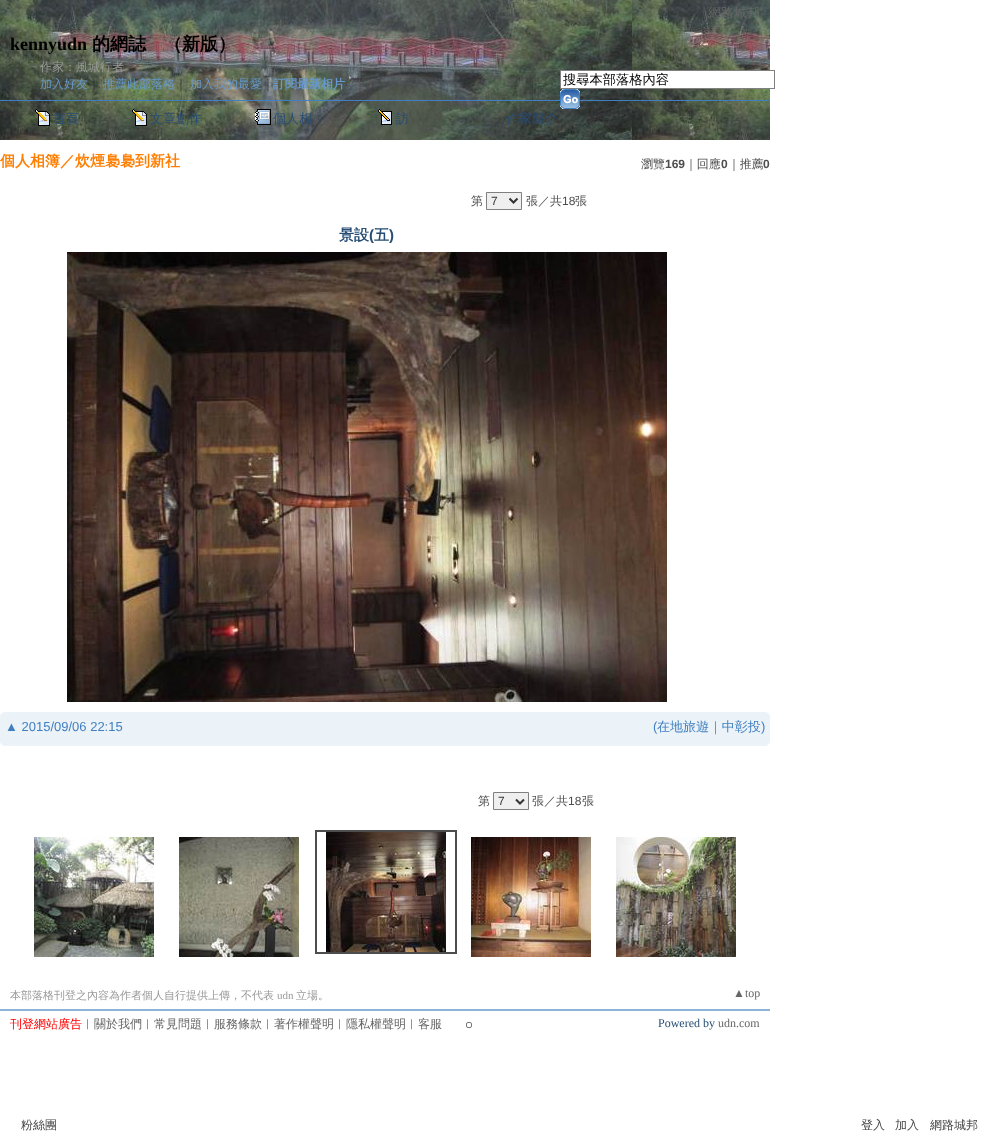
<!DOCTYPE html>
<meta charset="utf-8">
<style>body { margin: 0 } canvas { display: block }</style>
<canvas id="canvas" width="999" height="1140"></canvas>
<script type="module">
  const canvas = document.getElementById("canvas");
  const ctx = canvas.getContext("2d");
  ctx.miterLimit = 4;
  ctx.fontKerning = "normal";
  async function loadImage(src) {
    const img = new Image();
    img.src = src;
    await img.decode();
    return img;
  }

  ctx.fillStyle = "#ffffff";
  ctx.fillRect(0, 0, 999, 1140);
  ctx.drawImage(await loadImage("img1.png"), 0, 0, 770, 140);
  ctx.font = "500 13px WenQuanYi Zen Hei";
  ctx.fillStyle = "#666666";
  ctx.fillText("網路城邦", 708, 17);
  ctx.font = "bold 18px Liberation Serif";
  ctx.fillStyle = "#000000";
  ctx.fillText("kennyudn", 10, 50);
  ctx.font = "bold 18px WenQuanYi Zen Hei";
  ctx.fillText("的網誌", 92, 50);
  ctx.fillText("（新版）", 164, 50);
  ctx.font = "500 12px WenQuanYi Zen Hei";
  ctx.fillStyle = "#999999";
  ctx.fillText("作家：風城行者", 40, 71);
  ctx.fillStyle = "#6698cc";
  ctx.fillText("加入好友", 40, 88);
  ctx.fillStyle = "#333333";
  ctx.fillText("｜", 88, 88);
  ctx.fillStyle = "#6698cc";
  ctx.fillText("推薦此部落格", 103, 88);
  ctx.fillStyle = "#333333";
  ctx.fillText("｜", 175, 88);
  ctx.fillStyle = "#6698cc";
  ctx.fillText("加入我的最愛", 190, 88);
  ctx.fillStyle = "#333333";
  ctx.fillText("｜", 262, 88);
  ctx.font = "bold 12px WenQuanYi Zen Hei";
  ctx.fillStyle = "#6698cc";
  ctx.fillText("訂閱最新相片", 273, 88);
  ctx.fillStyle = "#ffffff";
  ctx.fillRect(561, 71, 209, 17);
  ctx.strokeStyle = "#808080";
  ctx.strokeRect(560.5, 70.5, 214, 18);
  ctx.font = "500 13.25px WenQuanYi Zen Hei";
  ctx.fillStyle = "#000000";
  ctx.fillText("搜尋本部落格內容", 563, 84);
  ctx.fillStyle = "#4180c0";
  ctx.fillRect(0, 100, 770, 1);
  ctx.drawImage(await loadImage("img2.png"), 560, 89, 20, 20);
  ctx.drawImage(await loadImage("img3.png"), 35, 109, 15, 17);
  ctx.font = "500 13px WenQuanYi Zen Hei";
  ctx.fillStyle = "#274d74";
  ctx.fillText("首頁", 53, 123);
  ctx.drawImage(await loadImage("img4.png"), 132, 109, 15, 17);
  ctx.fillText("文章創作", 150, 123);
  ctx.drawImage(await loadImage("img5.png"), 255, 109, 16, 16);
  ctx.fillText("個人相", 273, 123);
  ctx.drawImage(await loadImage("img6.png"), 378, 109, 14, 16);
  ctx.fillText("訪", 396, 123);
  ctx.fillText("作家簡介", 506, 123);
  ctx.font = "bold 15px WenQuanYi Zen Hei";
  ctx.fillStyle = "#ff7e00";
  ctx.fillText("個人相簿／炊煙裊裊到新社", 0, 166);
  ctx.font = "500 12px WenQuanYi Zen Hei";
  ctx.fillStyle = "#4d4d4d";
  ctx.fillText("瀏覽", 641, 168);
  ctx.font = "bold 12px Liberation Sans";
  ctx.fillText("169", 665, 168);
  ctx.font = "500 12px WenQuanYi Zen Hei";
  ctx.fillText("｜回應", 685, 168);
  ctx.font = "bold 12px Liberation Sans";
  ctx.fillText("0", 721, 168);
  ctx.font = "500 12px WenQuanYi Zen Hei";
  ctx.fillText("｜推薦", 728, 168);
  ctx.font = "bold 12px Liberation Sans";
  ctx.fillText("0", 763, 168);
  ctx.font = "500 12px WenQuanYi Zen Hei";
  ctx.fillText("第", 471, 205);
  ctx.fillStyle = "#efefef";
  ctx.beginPath();
  ctx.rect(486.5, 192.5, 35, 17);
  ctx.fill();
  ctx.stroke();
  ctx.beginPath();
  ctx.moveTo(509.5, 198.5);
  ctx.lineTo(513.5, 202.5);
  ctx.lineTo(517.5, 198.5);
  ctx.strokeStyle = "#333333";
  ctx.lineWidth = 2;
  ctx.stroke();
  ctx.font = "12px Liberation Sans";
  ctx.fillStyle = "#333333";
  ctx.fillText("7", 491, 205);
  ctx.font = "500 12px WenQuanYi Zen Hei";
  ctx.fillStyle = "#4d4d4d";
  ctx.fillText("張／共", 526, 205);
  ctx.font = "12px Liberation Sans";
  ctx.fillText("18", 562, 205);
  ctx.font = "500 12px WenQuanYi Zen Hei";
  ctx.fillText("張", 575, 205);
  ctx.font = "bold 15px WenQuanYi Zen Hei";
  ctx.fillStyle = "#274d74";
  ctx.fillText("景設", 339, 240);
  ctx.font = "bold 15px Liberation Sans";
  ctx.fillText("(", 369, 240);
  ctx.font = "bold 15px WenQuanYi Zen Hei";
  ctx.fillText("五", 374, 240);
  ctx.font = "bold 15px Liberation Sans";
  ctx.fillText(")", 389, 240);
  ctx.drawImage(await loadImage("img7.png"), 67, 252, 600, 450);
  ctx.drawImage(await loadImage("img8.png"), 0, 712, 5, 5);
  ctx.fillStyle = "#ebf2f8";
  ctx.fillRect(5, 712, 760, 5);
  ctx.drawImage(await loadImage("img9.png"), 765, 712, 5, 5);
  ctx.fillRect(0, 717, 770, 24);
  ctx.font = "13px Liberation Sans";
  ctx.fillStyle = "#4180c0";
  ctx.fillText("▲ 2015/09/06 22:15", 5, 731);
  ctx.fillText("(", 653, 731);
  ctx.font = "500 13px WenQuanYi Zen Hei";
  ctx.fillText("在地旅遊｜中彰投", 657, 731);
  ctx.font = "13px Liberation Sans";
  ctx.fillText(")", 761, 731);
  ctx.drawImage(await loadImage("img10.png"), 0, 741, 5, 5);
  ctx.fillStyle = "#ebf2f8";
  ctx.fillRect(5, 741, 760, 5);
  ctx.drawImage(await loadImage("img11.png"), 765, 741, 5, 5);
  ctx.font = "500 12px WenQuanYi Zen Hei";
  ctx.fillStyle = "#4d4d4d";
  ctx.fillText("第", 478, 805);
  ctx.fillStyle = "#efefef";
  ctx.beginPath();
  ctx.rect(493.5, 792.5, 35, 17);
  ctx.fill();
  ctx.strokeStyle = "#808080";
  ctx.lineWidth = 1;
  ctx.stroke();
  ctx.beginPath();
  ctx.moveTo(516, 799.5);
  ctx.lineTo(520, 803.5);
  ctx.lineTo(524, 799.5);
  ctx.strokeStyle = "#333333";
  ctx.lineWidth = 2;
  ctx.stroke();
  ctx.font = "12px Liberation Sans";
  ctx.fillStyle = "#333333";
  ctx.fillText("7", 498, 805);
  ctx.font = "500 12px WenQuanYi Zen Hei";
  ctx.fillStyle = "#4d4d4d";
  ctx.fillText("張／共", 532, 805);
  ctx.font = "12px Liberation Sans";
  ctx.fillText("18", 568, 805);
  ctx.font = "500 12px WenQuanYi Zen Hei";
  ctx.fillText("張", 582, 805);
  ctx.drawImage(await loadImage("img12.png"), 34, 837, 120, 120);
  ctx.drawImage(await loadImage("img13.png"), 179, 837, 120, 120);
  ctx.strokeStyle = "#4d4d4d";
  ctx.strokeRect(316, 831, 140, 122);
  ctx.drawImage(await loadImage("img14.png"), 326, 832, 120, 120);
  ctx.drawImage(await loadImage("img15.png"), 471, 837, 120, 120);
  ctx.drawImage(await loadImage("img16.png"), 616, 837, 120, 120);
  ctx.fillStyle = "#8db3d9";
  ctx.fillRect(0, 1009, 770, 2);
  ctx.font = "500 11px WenQuanYi Zen Hei";
  ctx.fillStyle = "#999999";
  ctx.fillText("本部落格刊登之內容為作者個人自行提供上傳，不代表", 10, 999);
  ctx.font = "11px Liberation Serif";
  ctx.fillText("udn", 277, 999);
  ctx.font = "500 11px WenQuanYi Zen Hei";
  ctx.fillText("立場。", 296, 999);
  ctx.font = "12px Liberation Serif";
  ctx.fillStyle = "#666666";
  ctx.fillText("▲top", 733, 997);
  ctx.font = "500 12px WenQuanYi Zen Hei";
  ctx.fillStyle = "#ff0000";
  ctx.fillText("刊登網站廣告", 10, 1028);
  ctx.fillStyle = "#333333";
  ctx.fillText("︱", 82, 1028);
  ctx.fillStyle = "#666666";
  ctx.fillText("關於我們", 94, 1028);
  ctx.fillStyle = "#333333";
  ctx.fillText("︱", 142, 1028);
  ctx.fillStyle = "#666666";
  ctx.fillText("常見問題", 154, 1028);
  ctx.fillStyle = "#333333";
  ctx.fillText("︱", 202, 1028);
  ctx.fillStyle = "#666666";
  ctx.fillText("服務條款", 214, 1028);
  ctx.fillStyle = "#333333";
  ctx.fillText("︱", 262, 1028);
  ctx.fillStyle = "#666666";
  ctx.fillText("著作權聲明", 274, 1028);
  ctx.fillStyle = "#333333";
  ctx.fillText("︱", 334, 1028);
  ctx.fillStyle = "#666666";
  ctx.fillText("隱私權聲明", 346, 1028);
  ctx.fillStyle = "#333333";
  ctx.fillText("︱", 406, 1028);
  ctx.fillStyle = "#666666";
  ctx.fillText("客服", 418, 1028);
  ctx.beginPath();
  ctx.roundRect(466.5, 1022.5, 5, 5, 1.5);
  ctx.strokeStyle = "#767676";
  ctx.lineWidth = 1;
  ctx.stroke();
  ctx.font = "12px Liberation Serif";
  ctx.fillStyle = "#274d74";
  ctx.fillText("Powered by", 658, 1027);
  ctx.fillStyle = "#666666";
  ctx.fillText("udn.com", 718, 1027);
  ctx.font = "500 12px WenQuanYi Zen Hei";
  ctx.fillStyle = "#444444";
  ctx.fillText("粉絲團", 21, 1129);
  ctx.fillText("登入", 861, 1129);
  ctx.fillText("加入", 895, 1129);
  ctx.fillText("網路城邦", 930, 1129);
</script>
